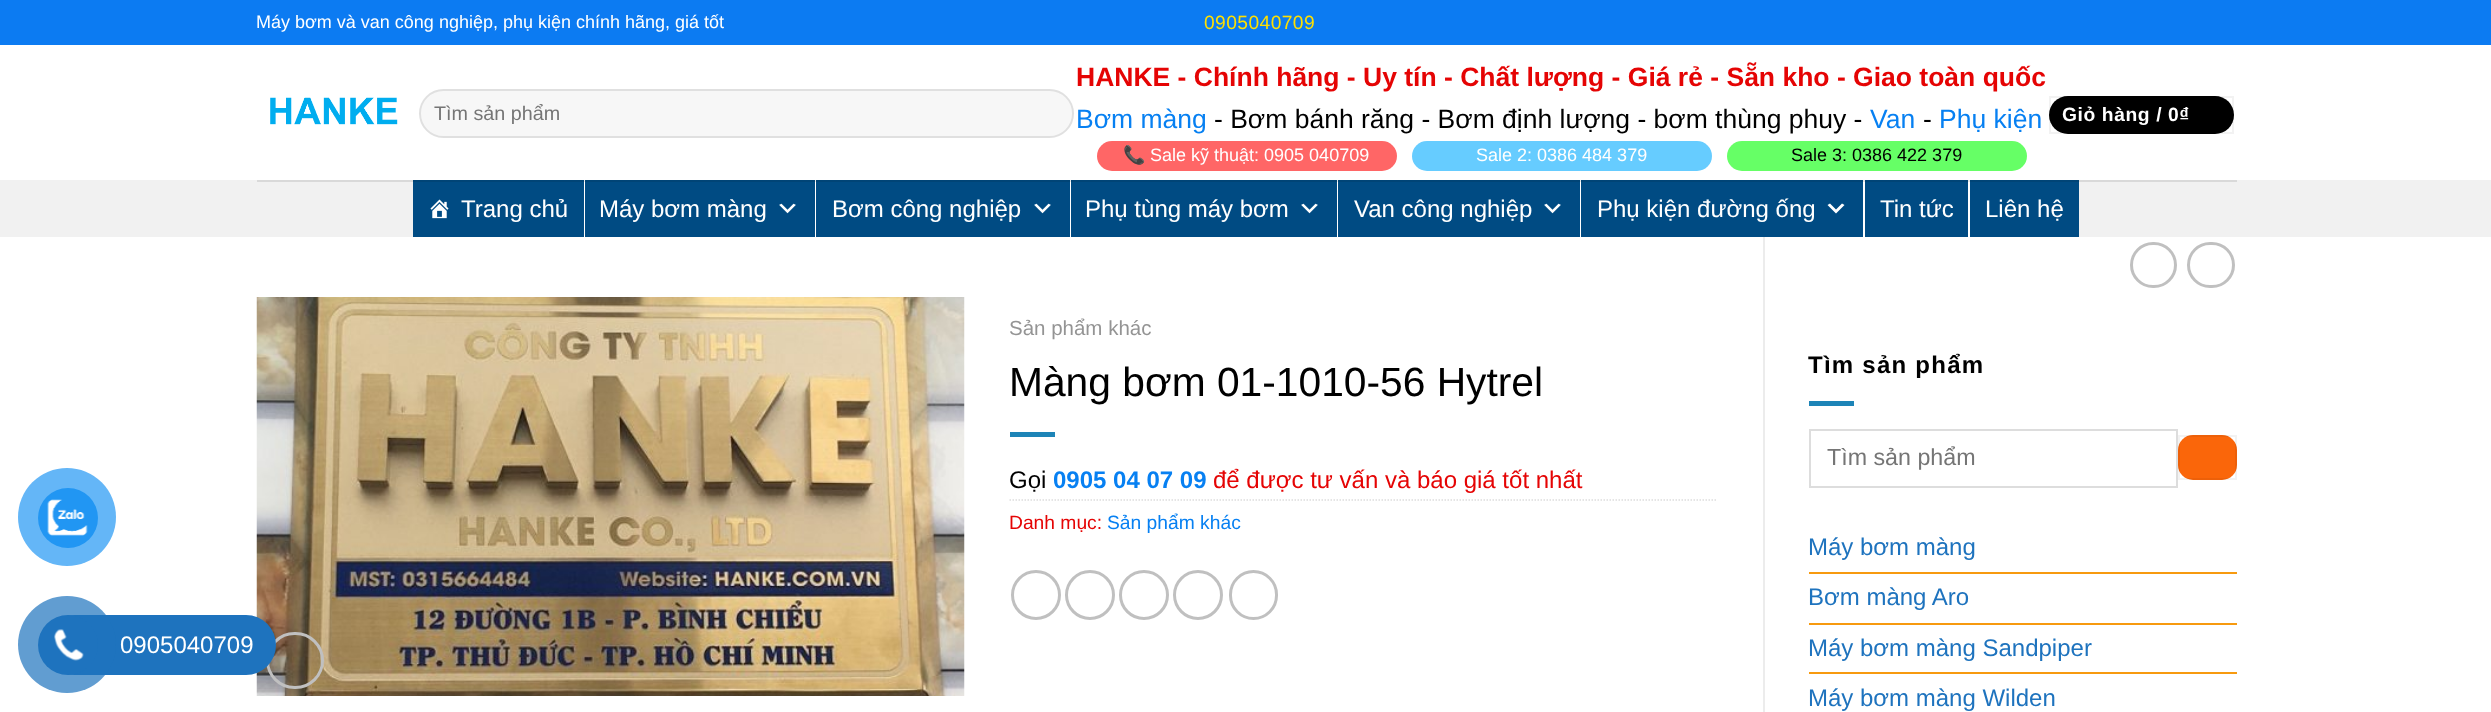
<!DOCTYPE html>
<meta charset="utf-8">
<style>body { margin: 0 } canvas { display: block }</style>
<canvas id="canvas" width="2491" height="712"></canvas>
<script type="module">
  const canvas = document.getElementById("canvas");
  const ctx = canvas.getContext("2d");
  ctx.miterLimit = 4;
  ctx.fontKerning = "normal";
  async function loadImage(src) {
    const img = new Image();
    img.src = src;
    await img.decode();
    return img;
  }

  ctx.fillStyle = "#ffffff";
  ctx.fillRect(0, 0, 2491, 712);
  ctx.fillStyle = "#64b6f7";
  ctx.beginPath();
  ctx.arc(67, 517, 49, 0, Math.PI * 2);
  ctx.fill();
  ctx.fillStyle = "#2196f3";
  ctx.beginPath();
  ctx.arc(68, 518, 30, 0, Math.PI * 2);
  ctx.fill();
  ctx.drawImage(await loadImage("img1.png"), 47, 499, 41, 37);
  ctx.drawImage(await loadImage("img6.png"), 256, 297, 709, 399);
  ctx.beginPath();
  ctx.roundRect(267.5, 633.5, 55, 54, 27);
  ctx.strokeStyle = "#c0c0c0";
  ctx.lineWidth = 3;
  ctx.stroke();
  ctx.fillStyle = "#1e73be";
  ctx.beginPath();
  ctx.roundRect(45, 615, 231, 60, 30);
  ctx.fill();
  ctx.fillStyle = "rgba(30, 115, 190, 0.7)";
  ctx.beginPath();
  ctx.roundRect(18, 596, 98, 97, 48.5);
  ctx.fill();
  ctx.fillStyle = "#1e73be";
  ctx.beginPath();
  ctx.arc(68, 645, 30, 0, Math.PI * 2);
  ctx.fill();
  ctx.drawImage(await loadImage("img2.png"), 54, 629, 30, 32);
  ctx.font = "24px Liberation Sans";
  ctx.fillStyle = "#ffffff";
  ctx.fillText("0905040709", 120, 653);
  ctx.fillStyle = "#0c7bf2";
  ctx.fillRect(0, 0, 2491, 45);
  ctx.font = "18px Liberation Sans";
  ctx.fillStyle = "#ffffff";
  ctx.fillText("Máy bơm và van công nghiệp, phụ kiện chính hãng, giá tốt", 256, 28);
  ctx.letterSpacing = "0.4px";
  ctx.font = "19.25px Liberation Sans";
  ctx.fillStyle = "#ffe000";
  ctx.fillText("0905040709", 1204, 29);
  ctx.drawImage(await loadImage("img3.png"), 270, 97, 128, 28);
  ctx.fillStyle = "#f7f7f7";
  ctx.beginPath();
  ctx.roundRect(419, 89, 655, 49, 24.5);
  ctx.fill();
  ctx.beginPath();
  ctx.roundRect(420, 90, 653, 47, 23.5);
  ctx.strokeStyle = "rgba(0, 0, 0, 0.09)";
  ctx.lineWidth = 2;
  ctx.stroke();
  ctx.letterSpacing = "0px";
  ctx.font = "19.75px Liberation Sans";
  ctx.fillStyle = "#757575";
  ctx.fillText("Tìm sản phẩm", 434, 120);
  ctx.font = "bold 26.5px Liberation Sans";
  ctx.fillStyle = "#e50404";
  ctx.fillText("HANKE - Chính hãng - Uy tín - Chất lượng - Giá rẻ - Sẵn kho - Giao toàn quốc", 1076, 86);
  ctx.font = "26.5px Liberation Sans";
  ctx.fillStyle = "#0780f2";
  ctx.fillText("Bơm màng", 1076, 128);
  ctx.fillStyle = "#000000";
  ctx.fillText("- Bơm bánh răng - Bơm định lượng - bơm thùng phuy -", 1214, 128);
  ctx.fillStyle = "#0780f2";
  ctx.fillText("Van", 1870, 128);
  ctx.fillStyle = "#000000";
  ctx.fillText("-", 1923, 128);
  ctx.fillStyle = "#0780f2";
  ctx.fillText("Phụ kiện", 1939, 128);
  ctx.fillStyle = "#ff6666";
  ctx.beginPath();
  ctx.roundRect(1097, 141, 300, 30, 15);
  ctx.fill();
  ctx.font = "18px Noto Color Emoji";
  ctx.fillStyle = "#ffffff";
  ctx.fillText("📞", 1123, 161);
  ctx.font = "18px Liberation Sans";
  ctx.fillText("Sale kỹ thuật: 0905 040709", 1150, 161);
  ctx.fillStyle = "#66ccff";
  ctx.beginPath();
  ctx.roundRect(1412, 141, 300, 30, 15);
  ctx.fill();
  ctx.fillStyle = "#ffffff";
  ctx.fillText("Sale 2: 0386 484 379", 1476, 161);
  ctx.fillStyle = "#66ff66";
  ctx.beginPath();
  ctx.roundRect(1727, 141, 300, 30, 15);
  ctx.fill();
  ctx.fillStyle = "#000000";
  ctx.fillText("Sale 3: 0386 422 379", 1791, 161);
  ctx.beginPath();
  ctx.roundRect(2049, 96, 185, 38, 19);
  ctx.fill();
  ctx.strokeStyle = "rgba(0, 0, 0, 0.05)";
  ctx.strokeRect(2050, 97, 183, 36);
  ctx.letterSpacing = "0.6px";
  ctx.font = "bold 19.25px Liberation Sans";
  ctx.fillStyle = "#ffffff";
  ctx.fillText("Giỏ hàng / 0₫", 2062, 121);
  ctx.fillStyle = "#f1f1f1";
  ctx.fillRect(0, 180, 2491, 57);
  ctx.fillStyle = "#d9d9d9";
  ctx.fillRect(257, 180, 1980, 2);
  ctx.fillStyle = "#ffffff";
  ctx.fillRect(584, 182, 1386, 55);
  ctx.fillStyle = "#e6e6e6";
  ctx.fillRect(584, 180, 1386, 2);
  ctx.fillStyle = "#004b83";
  ctx.fillRect(413, 182, 171, 55);
  ctx.fillStyle = "#004476";
  ctx.fillRect(413, 180, 171, 2);
  ctx.drawImage(await loadImage("img4.png"), 430, 199, 19, 20);
  ctx.letterSpacing = "0px";
  ctx.font = "24px Liberation Sans";
  ctx.fillStyle = "#ffffff";
  ctx.fillText("Trang chủ", 461, 217);
  ctx.fillStyle = "#004b83";
  ctx.fillRect(585, 182, 230, 55);
  ctx.fillStyle = "#004476";
  ctx.fillRect(585, 180, 230, 2);
  ctx.fillStyle = "#ffffff";
  ctx.fillText("Máy bơm màng", 599, 217);
  ctx.drawImage(await loadImage("img5.png"), 779, 203, 17, 11);
  ctx.fillStyle = "#004b83";
  ctx.fillRect(816, 182, 254, 55);
  ctx.fillStyle = "#004476";
  ctx.fillRect(816, 180, 254, 2);
  ctx.fillStyle = "#ffffff";
  ctx.fillText("Bơm công nghiệp", 832, 217);
  ctx.drawImage(await loadImage("img5.png"), 1034, 203, 17, 11);
  ctx.fillStyle = "#004b83";
  ctx.fillRect(1071, 182, 266, 55);
  ctx.fillStyle = "#004476";
  ctx.fillRect(1071, 180, 266, 2);
  ctx.fillStyle = "#ffffff";
  ctx.fillText("Phụ tùng máy bơm", 1085, 217);
  ctx.drawImage(await loadImage("img5.png"), 1301, 203, 17, 11);
  ctx.fillStyle = "#004b83";
  ctx.fillRect(1338, 182, 242, 55);
  ctx.fillStyle = "#004476";
  ctx.fillRect(1338, 180, 242, 2);
  ctx.fillStyle = "#ffffff";
  ctx.fillText("Van công nghiệp", 1354, 217);
  ctx.drawImage(await loadImage("img5.png"), 1544, 203, 17, 11);
  ctx.fillStyle = "#004b83";
  ctx.fillRect(1581, 182, 282, 55);
  ctx.fillStyle = "#004476";
  ctx.fillRect(1581, 180, 282, 2);
  ctx.fillStyle = "#ffffff";
  ctx.fillText("Phụ kiện đường ống", 1597, 217);
  ctx.beginPath();
  ctx.moveTo(1830, 203.5);
  ctx.lineTo(1836, 209.5);
  ctx.lineTo(1842, 203.5);
  ctx.lineTo(1844.5, 205);
  ctx.lineTo(1836, 213.5);
  ctx.lineTo(1827.5, 205);
  ctx.closePath();
  ctx.fill();
  ctx.fillStyle = "#004b83";
  ctx.fillRect(1865, 182, 103, 55);
  ctx.fillStyle = "#004476";
  ctx.fillRect(1865, 180, 103, 2);
  ctx.fillStyle = "#ffffff";
  ctx.fillText("Tin tức", 1880, 217);
  ctx.fillStyle = "#004b83";
  ctx.fillRect(1970, 182, 109, 55);
  ctx.fillStyle = "#004476";
  ctx.fillRect(1970, 180, 109, 2);
  ctx.fillStyle = "#ffffff";
  ctx.fillText("Liên hệ", 1985, 217);
  ctx.fillStyle = "#ececec";
  ctx.fillRect(1763, 237, 2, 475);
  ctx.font = "20.5px Liberation Sans";
  ctx.fillStyle = "#949494";
  ctx.fillText("Sản phẩm khác", 1009, 335);
  ctx.font = "40.75px Liberation Sans";
  ctx.fillStyle = "#000000";
  ctx.fillText("Màng bơm 01-1010-56 Hytrel", 1009, 396);
  ctx.fillStyle = "#1d84b7";
  ctx.fillRect(1010, 432, 45, 5);
  ctx.font = "24px Liberation Sans";
  ctx.fillStyle = "#e50404";
  ctx.fillText("để được tư vấn và báo giá tốt nhất", 1213, 488);
  ctx.beginPath();
  ctx.moveTo(1009.5, 500);
  ctx.lineTo(1717.5, 500);
  ctx.strokeStyle = "#dddddd";
  ctx.lineWidth = 1.5;
  ctx.setLineDash([1.5, 1.5]);
  ctx.stroke();
  ctx.font = "19.25px Liberation Sans";
  ctx.fillText("Danh mục:", 1009, 529);
  ctx.fillStyle = "#0780f2";
  ctx.fillText("Sản phẩm khác", 1107, 529);
  ctx.beginPath();
  ctx.arc(1036, 595, 23.5, 0, Math.PI * 2);
  ctx.strokeStyle = "#c0c0c0";
  ctx.lineWidth = 3;
  ctx.setLineDash([]);
  ctx.stroke();
  ctx.beginPath();
  ctx.arc(1090, 595, 23.5, 0, Math.PI * 2);
  ctx.stroke();
  ctx.beginPath();
  ctx.arc(1144, 595, 23.5, 0, Math.PI * 2);
  ctx.stroke();
  ctx.beginPath();
  ctx.arc(1198, 595, 23.5, 0, Math.PI * 2);
  ctx.stroke();
  ctx.beginPath();
  ctx.roundRect(1230.5, 571.5, 46, 47, 23);
  ctx.stroke();
  ctx.font = "24px Liberation Sans";
  ctx.fillStyle = "#000000";
  ctx.fillText("Gọi", 1009, 488);
  ctx.font = "bold 24px Liberation Sans";
  ctx.fillStyle = "#0780f2";
  ctx.fillText("0905 04 07 09", 1053, 488);
  ctx.beginPath();
  ctx.roundRect(2131.5, 243.5, 44, 43, 21.5);
  ctx.stroke();
  ctx.beginPath();
  ctx.roundRect(2188.5, 243.5, 45, 43, 21.5);
  ctx.stroke();
  ctx.letterSpacing = "1.25px";
  ctx.fillStyle = "#000000";
  ctx.fillText("Tìm sản phẩm", 1808, 373);
  ctx.fillStyle = "#1d84b7";
  ctx.fillRect(1809, 401, 45, 5);
  ctx.strokeStyle = "#dddddd";
  ctx.lineWidth = 2;
  ctx.strokeRect(1810, 430, 367, 57);
  ctx.letterSpacing = "0px";
  ctx.font = "23.25px Liberation Sans";
  ctx.fillStyle = "#757575";
  ctx.fillText("Tìm sản phẩm", 1827, 465);
  ctx.fillStyle = "#fa660a";
  ctx.beginPath();
  ctx.roundRect(2178, 435, 59, 45, 15);
  ctx.fill();
  ctx.strokeStyle = "rgba(0, 0, 0, 0.05)";
  ctx.strokeRect(2179, 436, 57, 43);
  ctx.font = "24px Liberation Sans";
  ctx.fillStyle = "#1e73be";
  ctx.fillText("Máy bơm màng", 1808, 555);
  ctx.fillStyle = "#f79a0f";
  ctx.fillRect(1809, 572, 428, 2);
  ctx.fillStyle = "#1e73be";
  ctx.fillText("Bơm màng Aro", 1808, 605);
  ctx.fillStyle = "#f79a0f";
  ctx.fillRect(1809, 623, 428, 2);
  ctx.fillStyle = "#1e73be";
  ctx.fillText("Máy bơm màng Sandpiper", 1808, 656);
  ctx.fillStyle = "#f79a0f";
  ctx.fillRect(1809, 672, 428, 2);
  ctx.fillStyle = "#1e73be";
  ctx.fillText("Máy bơm màng Wilden", 1808, 706);
</script>
